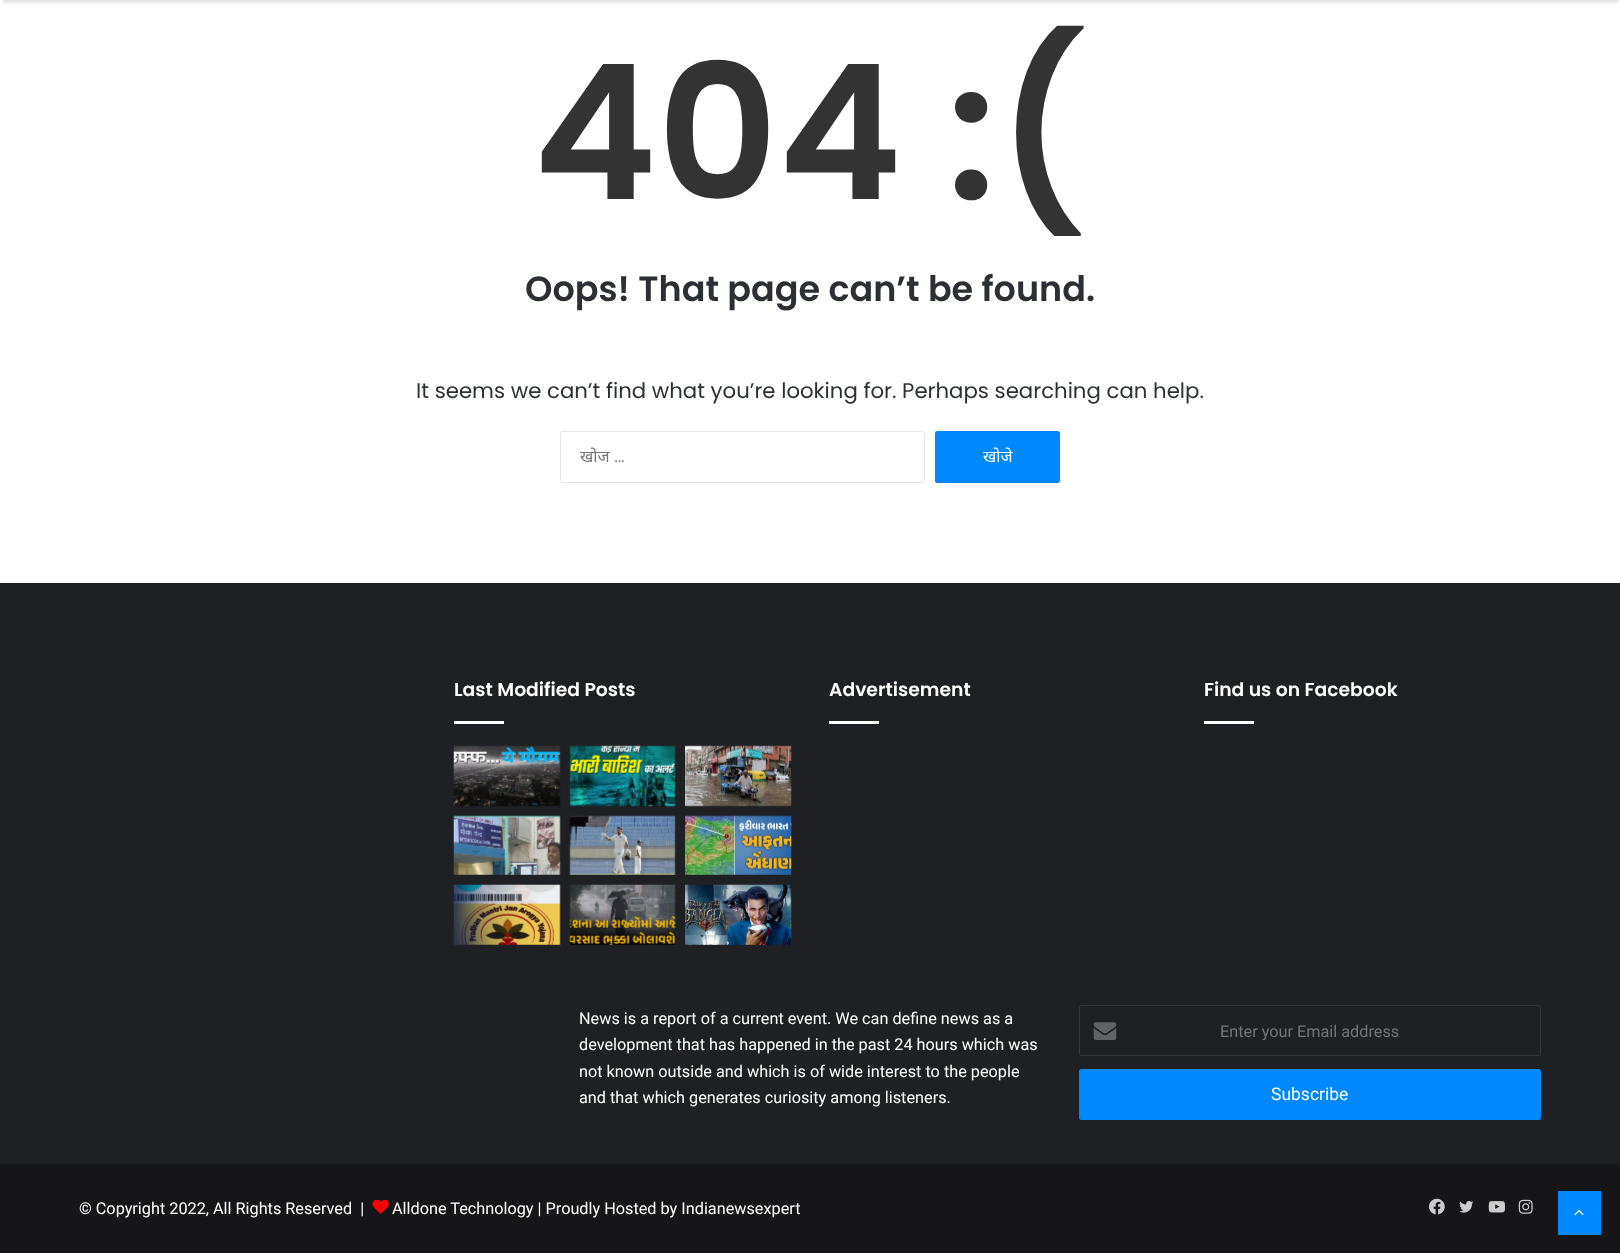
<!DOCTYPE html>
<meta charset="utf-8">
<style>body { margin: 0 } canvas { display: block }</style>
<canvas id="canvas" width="1620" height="1253"></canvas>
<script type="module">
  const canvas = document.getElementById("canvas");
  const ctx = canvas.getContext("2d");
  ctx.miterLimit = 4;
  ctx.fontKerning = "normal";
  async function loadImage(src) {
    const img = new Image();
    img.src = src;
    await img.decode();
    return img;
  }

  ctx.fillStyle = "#ffffff";
  ctx.fillRect(0, 0, 1620, 1253);
  ctx.fillStyle = "rgba(0, 0, 0, 0.1)";
  ctx.filter = "blur(1px)";
  ctx.beginPath();
  ctx.rect(3, -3, 1615, 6);
  ctx.fill();
  ctx.filter = "none";
  ctx.font = "600 187.5px Poppins";
  ctx.fillStyle = "#333333";
  ctx.fillText("404 :(", 533, 199);
  ctx.font = "600 35px Poppins";
  ctx.fillStyle = "#2c2f34";
  ctx.fillText("Oops! That page can’t be found.", 525, 301);
  ctx.font = "21.25px Poppins";
  ctx.fillText("It seems we can’t find what you’re looking for. Perhaps searching can help.", 416, 398);
  ctx.beginPath();
  ctx.roundRect(560.5, 431.5, 364, 51, 2);
  ctx.strokeStyle = "#e6e6e6";
  ctx.stroke();
  ctx.save();
  ctx.beginPath();
  ctx.rect(580, 445, 320, 23);
  ctx.clip();
  ctx.font = "16.25px Noto Sans";
  ctx.fillStyle = "#757575";
  ctx.fillText("खोज", 580, 462);
  ctx.restore();
  ctx.font = "16.25px Roboto";
  ctx.fillStyle = "#757575";
  ctx.fillText("…", 614, 462);
  ctx.fillStyle = "#0088ff";
  ctx.beginPath();
  ctx.roundRect(935, 431, 125, 52, 2.5);
  ctx.fill();
  ctx.font = "16.25px Noto Sans";
  ctx.fillStyle = "#ffffff";
  ctx.fillText("खोजे", 983, 462);
  ctx.fillStyle = "#1f2024";
  ctx.fillRect(0, 583, 1620, 581);
  ctx.font = "600 18.75px Poppins";
  ctx.fillStyle = "#ffffff";
  ctx.fillText("Last Modified Posts", 454, 696);
  ctx.fillRect(454, 721, 50, 3);
  ctx.drawImage(await loadImage("img1.png"), 453, 745, 108, 62);
  ctx.drawImage(await loadImage("img2.png"), 569, 745, 107, 62);
  ctx.drawImage(await loadImage("img3.png"), 685, 745, 107, 62);
  ctx.drawImage(await loadImage("img4.png"), 453, 815, 108, 60);
  ctx.drawImage(await loadImage("img5.png"), 569, 815, 107, 60);
  ctx.drawImage(await loadImage("img6.png"), 685, 815, 107, 60);
  ctx.drawImage(await loadImage("img7.png"), 453, 884, 108, 61);
  ctx.drawImage(await loadImage("img8.png"), 569, 884, 107, 61);
  ctx.drawImage(await loadImage("img9.png"), 685, 884, 107, 61);
  ctx.fillText("Advertisement", 829, 696);
  ctx.fillRect(829, 721, 50, 3);
  ctx.fillText("Find us on Facebook", 1204, 696);
  ctx.fillRect(1204, 721, 50, 3);
  ctx.font = "16.25px Roboto";
  ctx.fillText("News is a report of a current event. We can define news as a", 579, 1024);
  ctx.fillText("development that has happened in the past 24 hours which was", 579, 1050);
  ctx.fillText("not known outside and which is of wide interest to the people", 579, 1077);
  ctx.fillText("and that which generates curiosity among listeners.", 579, 1103);
  ctx.beginPath();
  ctx.roundRect(1079.5, 1005.5, 461, 50, 2);
  ctx.strokeStyle = "#35363a";
  ctx.stroke();
  ctx.drawImage(await loadImage("img10.png"), 1093, 1022, 24, 18);
  ctx.save();
  ctx.beginPath();
  ctx.rect(1118, 1021, 385, 19);
  ctx.clip();
  ctx.fillStyle = "#757575";
  ctx.fillText("Enter your Email address", 1220, 1037);
  ctx.restore();
  ctx.fillStyle = "#0088ff";
  ctx.beginPath();
  ctx.roundRect(1079, 1069, 462, 51, 2.5);
  ctx.fill();
  ctx.font = "17.5px Roboto";
  ctx.fillStyle = "#ffffff";
  ctx.fillText("Subscribe", 1271, 1100);
  ctx.fillStyle = "#161619";
  ctx.fillRect(0, 1164, 1620, 89);
  ctx.font = "16.25px Roboto";
  ctx.fillStyle = "#ffffff";
  ctx.fillText("© Copyright 2022, All Rights Reserved  |", 79, 1214);
  ctx.drawImage(await loadImage("img11.png"), 372, 1199, 17, 15);
  ctx.fillText("Alldone Technology | Proudly Hosted by Indianewsexpert", 392, 1214);
  ctx.drawImage(await loadImage("img12.png"), 1429, 1198, 16, 17);
  ctx.drawImage(await loadImage("img13.png"), 1459, 1201, 15, 12);
  ctx.drawImage(await loadImage("img14.png"), 1488, 1201, 17, 12);
  ctx.drawImage(await loadImage("img15.png"), 1518, 1199, 15, 15);
  ctx.fillStyle = "#0088ff";
  ctx.fillRect(1558, 1191, 43, 44);
  ctx.drawImage(await loadImage("img16.png"), 1574, 1209, 10, 7);
</script>
